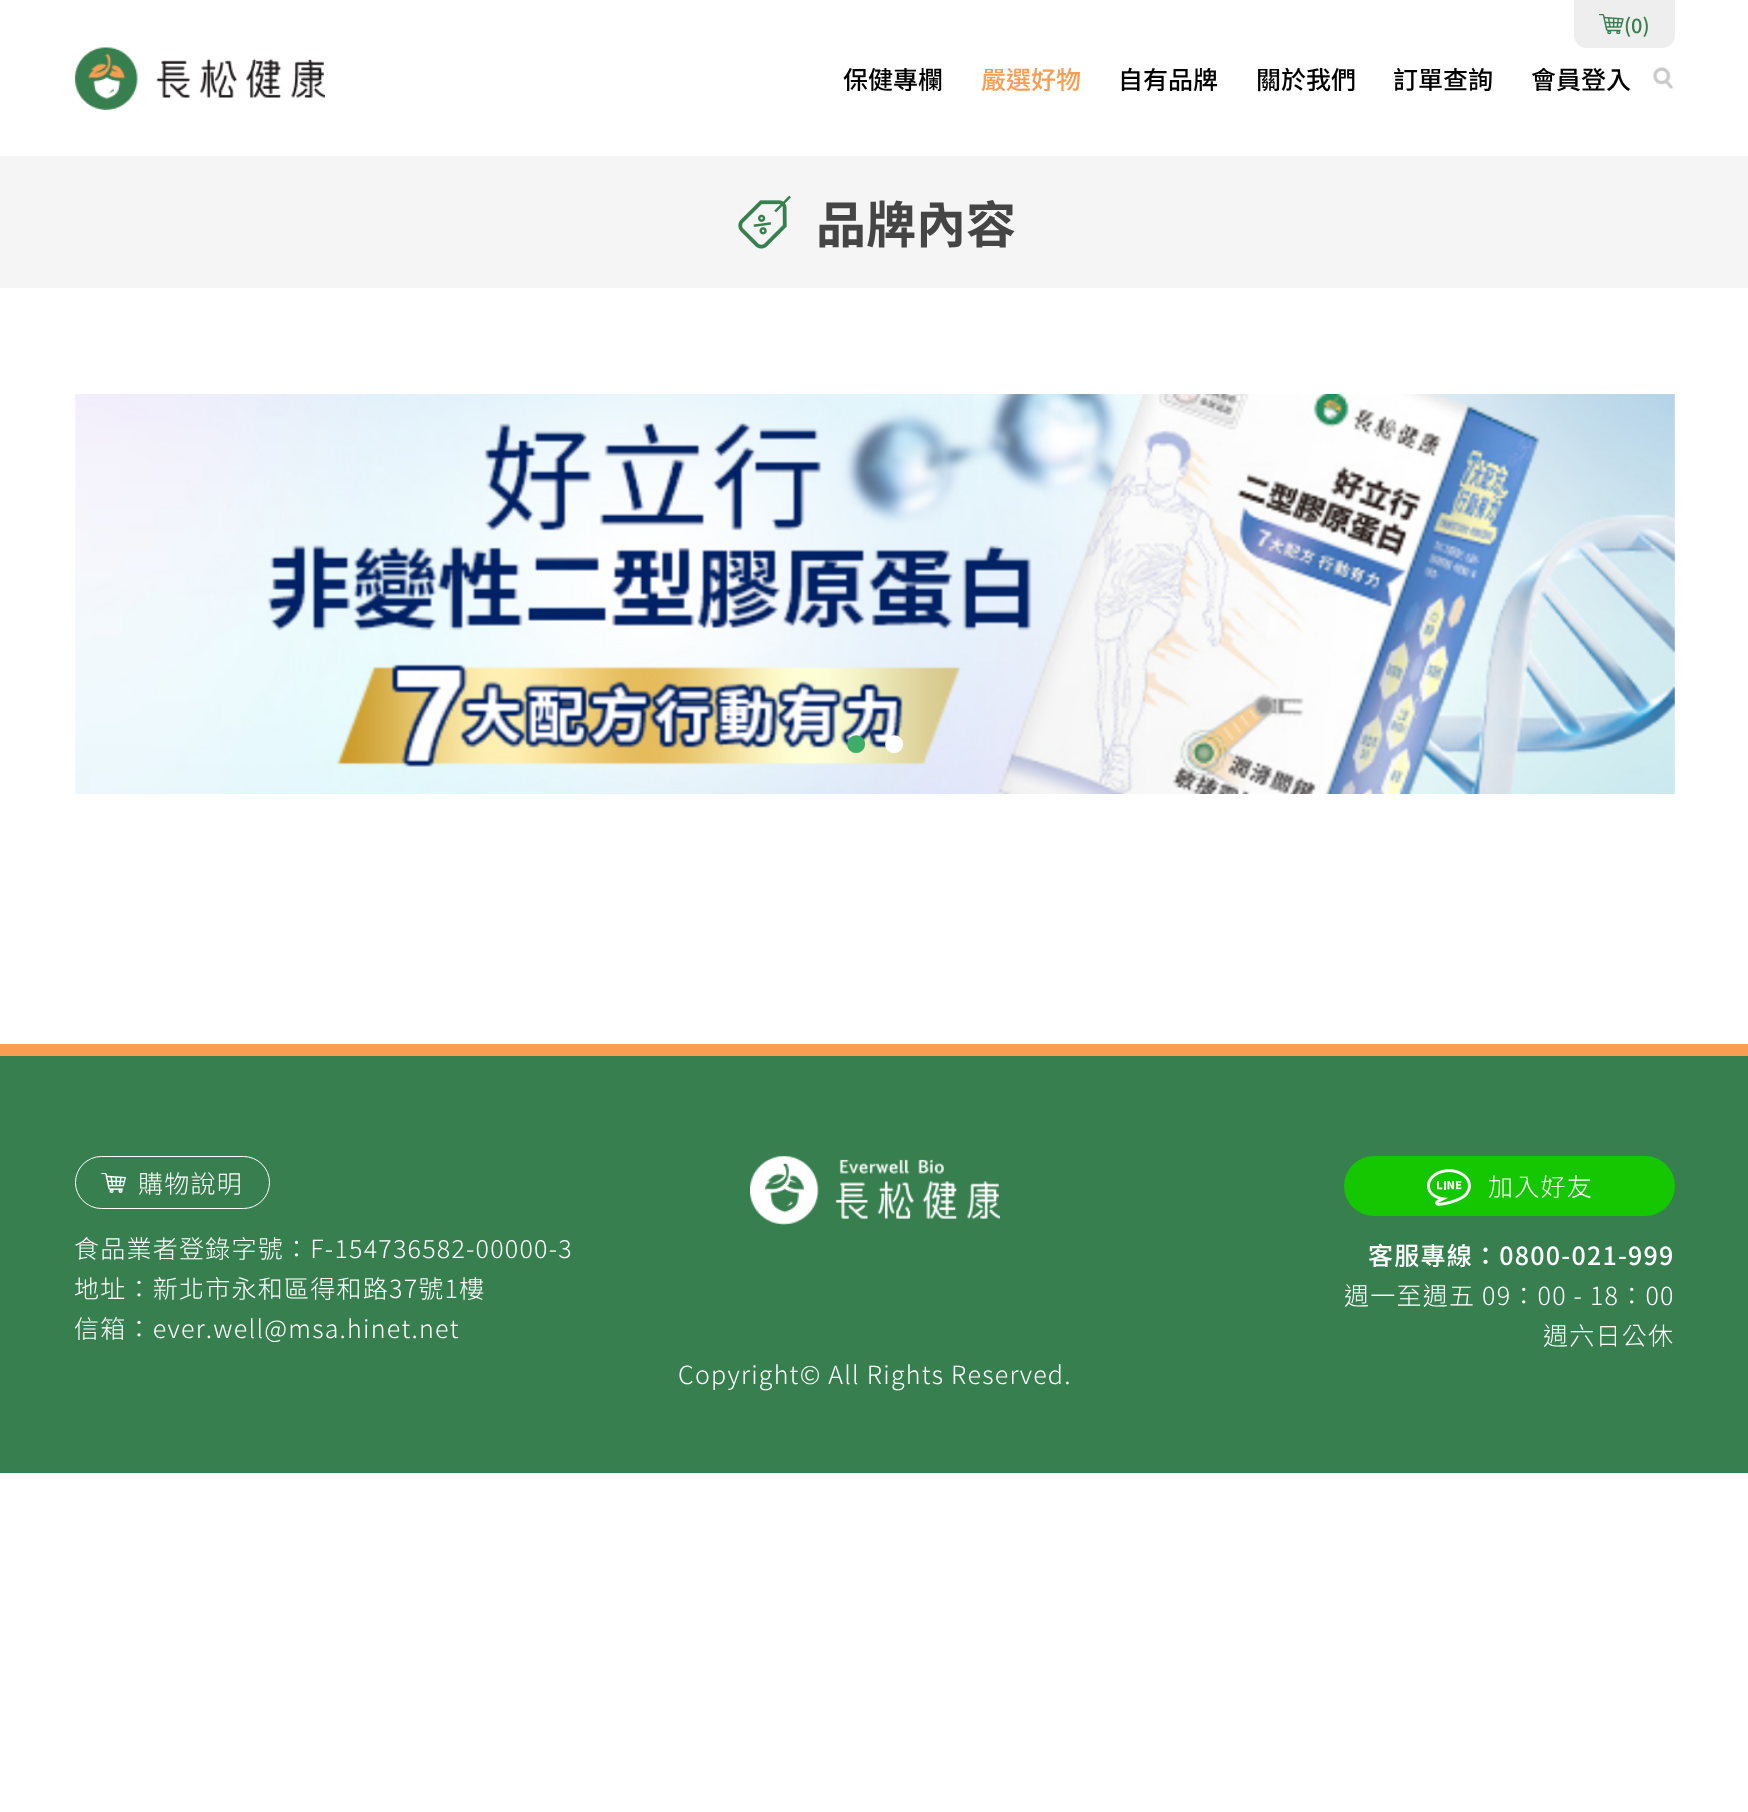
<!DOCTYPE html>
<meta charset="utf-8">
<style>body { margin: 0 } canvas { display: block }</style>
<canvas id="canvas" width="1748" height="1812"></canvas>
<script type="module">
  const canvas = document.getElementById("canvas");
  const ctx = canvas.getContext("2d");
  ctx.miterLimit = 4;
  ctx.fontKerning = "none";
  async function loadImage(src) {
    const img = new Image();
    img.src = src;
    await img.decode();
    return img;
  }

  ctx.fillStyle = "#ffffff";
  ctx.fillRect(0, 0, 1748, 1812);
  ctx.drawImage(await loadImage("img1.png"), 74, 47, 251, 63);
  ctx.fillStyle = "#eeeeee";
  ctx.beginPath();
  ctx.roundRect(1574, 0, 101, 48, [0, 0, 13, 13]);
  ctx.fill();
  ctx.drawImage(await loadImage("img2.png"), 1599, 14, 25, 20);
  ctx.font = "500 20px Noto Sans TC";
  ctx.fillStyle = "#387f4f";
  ctx.fillText("(0)", 1624, 33);
  ctx.font = "500 25px Noto Sans TC";
  ctx.fillStyle = "#000000";
  ctx.fillText("保健專欄", 843, 89);
  ctx.fillStyle = "#f89e53";
  ctx.fillText("嚴選好物", 981, 89);
  ctx.fillStyle = "#000000";
  ctx.fillText("自有品牌", 1118, 89);
  ctx.fillText("關於我們", 1256, 89);
  ctx.fillText("訂單查詢", 1393, 89);
  ctx.fillText("會員登入", 1531, 89);
  ctx.drawImage(await loadImage("img3.png"), 1653, 67, 21, 22);
  ctx.fillStyle = "#f5f5f5";
  ctx.fillRect(0, 156, 1748, 132);
  ctx.drawImage(await loadImage("img4.png"), 738, 195, 53, 54);
  ctx.font = "bold 50px Noto Sans TC";
  ctx.fillStyle = "#454545";
  ctx.fillText("品牌內容", 816, 243);
  ctx.drawImage(await loadImage("img5.png"), 75, 394, 1600, 400);
  ctx.font = "75px Liberation Serif";
  ctx.fillStyle = "#3fad69";
  ctx.fillText("•", 843, 769);
  ctx.fillStyle = "#ffffff";
  ctx.fillText("•", 881, 769);
  ctx.fillStyle = "#387f4f";
  ctx.fillRect(0, 1056, 1748, 417);
  ctx.fillStyle = "#f89e53";
  ctx.fillRect(0, 1044, 1748, 12);
  ctx.beginPath();
  ctx.roundRect(75.5, 1156.5, 194, 52, 26);
  ctx.strokeStyle = "#ffffff";
  ctx.stroke();
  ctx.drawImage(await loadImage("img6.png"), 101, 1173, 25, 20);
  ctx.letterSpacing = "1.25px";
  ctx.font = "300 25px Noto Sans TC";
  ctx.fillStyle = "#ffffff";
  ctx.fillText("購物說明", 138, 1193);
  ctx.fillText("食品業者登錄字號：F-154736582-00000-3", 74, 1258);
  ctx.fillText("地址：新北市永和區得和路37號1樓", 74, 1298);
  ctx.fillText("信箱：ever.well@msa.hinet.net", 74, 1338);
  ctx.drawImage(await loadImage("img7.png"), 750, 1156, 250, 69);
  ctx.fillStyle = "#14c700";
  ctx.beginPath();
  ctx.roundRect(1344, 1156, 331, 60, 30);
  ctx.fill();
  ctx.drawImage(await loadImage("img8.png"), 1427, 1169, 44, 37);
  ctx.fillStyle = "#ffffff";
  ctx.fillText("加入好友", 1488, 1196);
  ctx.font = "500 25px Noto Sans TC";
  ctx.fillText("客服專線：0800-021-999", 1368, 1265);
  ctx.font = "300 25px Noto Sans TC";
  ctx.fillText("週一至週五 09：00 - 18：00", 1344, 1305);
  ctx.fillText("週六日公休", 1543, 1345);
  ctx.fillText("Copyright© All Rights Reserved.", 678, 1384);
</script>
